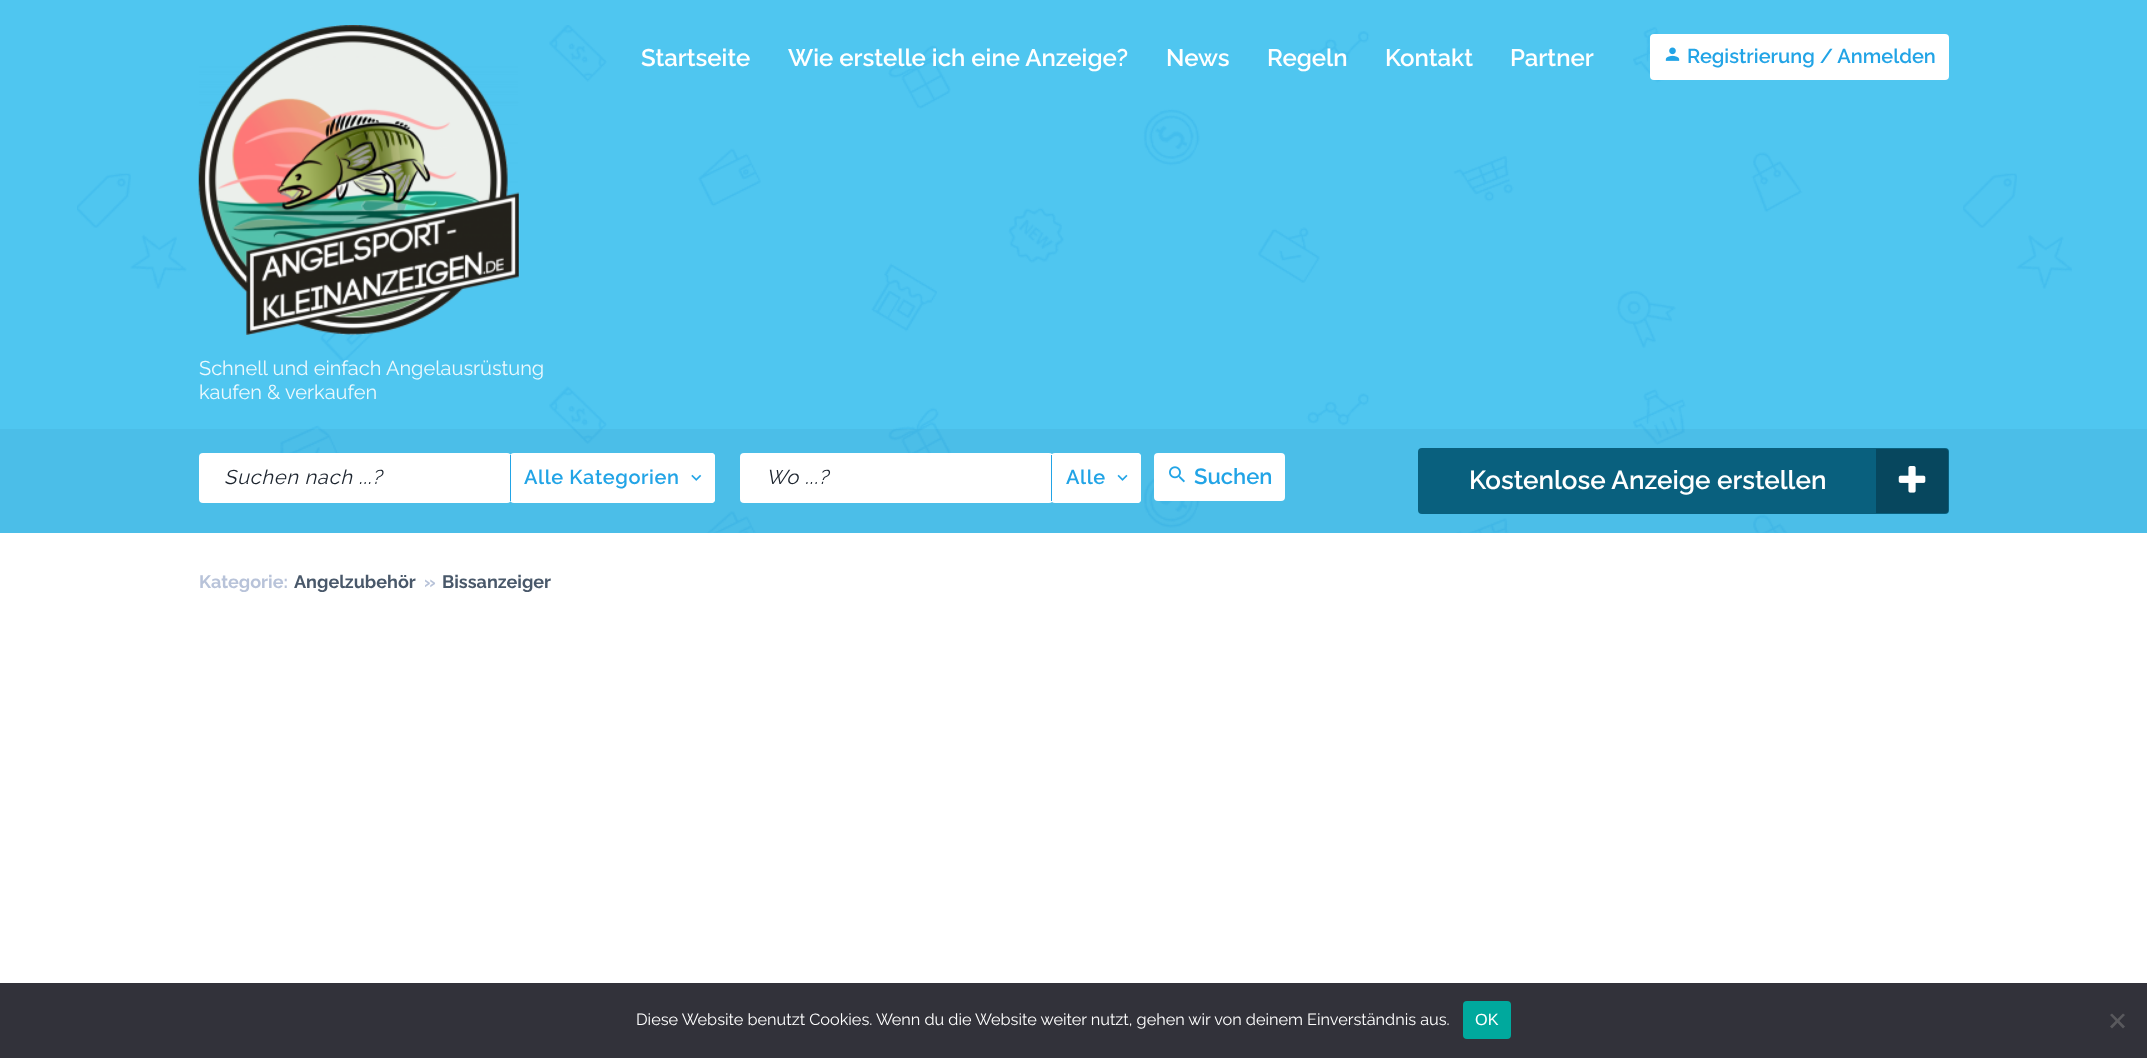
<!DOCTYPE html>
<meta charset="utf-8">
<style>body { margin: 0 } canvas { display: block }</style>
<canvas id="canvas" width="2147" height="1058"></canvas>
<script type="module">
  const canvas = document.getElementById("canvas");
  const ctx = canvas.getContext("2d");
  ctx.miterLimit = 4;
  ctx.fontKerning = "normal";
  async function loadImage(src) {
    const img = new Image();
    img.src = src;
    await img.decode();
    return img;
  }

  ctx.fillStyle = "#ffffff";
  ctx.fillRect(0, 0, 2147, 1058);
  ctx.fillStyle = "#4fc6f0";
  ctx.fillRect(0, 0, 2147, 533);
  ctx.drawImage(await loadImage("img1.png"), 77, 25, 1995, 508);
  ctx.font = "600 24px Raleway";
  ctx.fillStyle = "#ffffff";
  ctx.fillText("Startseite", 641, 66);
  ctx.fillText("Wie erstelle ich eine Anzeige?", 788, 66);
  ctx.fillText("News", 1166, 66);
  ctx.fillText("Regeln", 1267, 66);
  ctx.fillText("Kontakt", 1385, 66);
  ctx.fillText("Partner", 1510, 66);
  ctx.beginPath();
  ctx.roundRect(1650, 34, 299, 46, 4);
  ctx.fill();
  ctx.drawImage(await loadImage("img2.png"), 1665, 47, 15, 14);
  ctx.font = "600 20px Raleway";
  ctx.fillStyle = "#22a4e6";
  ctx.fillText("Registrierung / Anmelden", 1687, 63);
  ctx.drawImage(await loadImage("img3.png"), 198, 25, 321, 310);
  ctx.font = "20px Raleway";
  ctx.fillStyle = "#edf9fd";
  ctx.fillText("Schnell und einfach Angelausrüstung", 199, 375);
  ctx.fillText("kaufen & verkaufen", 199, 399);
  ctx.fillStyle = "rgba(47, 123, 170, 0.11)";
  ctx.fillRect(0, 429, 2147, 104);
  ctx.fillStyle = "#ffffff";
  ctx.beginPath();
  ctx.roundRect(199, 453, 312, 50, 4);
  ctx.fill();
  ctx.letterSpacing = "0.75px";
  ctx.font = "italic 20px Raleway";
  ctx.fillStyle = "#1c242e";
  ctx.fillText("Suchen nach ...?", 224, 484);
  ctx.fillStyle = "#ffffff";
  ctx.beginPath();
  ctx.roundRect(510, 453, 205, 50, 4);
  ctx.fill();
  ctx.fillStyle = "#22a4e6";
  ctx.fillRect(510, 455, 1, 46);
  ctx.letterSpacing = "0.6px";
  ctx.font = "600 20px Raleway";
  ctx.fillText("Alle Kategorien", 524, 484);
  ctx.fillStyle = "#ffffff";
  ctx.beginPath();
  ctx.roundRect(686, 453, 29, 50, 4);
  ctx.fill();
  ctx.drawImage(await loadImage("img4.png"), 691, 474, 11, 7);
  ctx.beginPath();
  ctx.roundRect(740, 453, 313, 50, 4);
  ctx.fill();
  ctx.letterSpacing = "0.75px";
  ctx.font = "italic 20px Raleway";
  ctx.fillStyle = "#1c242e";
  ctx.fillText("Wo ...?", 766, 484);
  ctx.fillStyle = "#ffffff";
  ctx.beginPath();
  ctx.roundRect(1051, 453, 90, 50, 4);
  ctx.fill();
  ctx.fillStyle = "#22a4e6";
  ctx.fillRect(1051, 455, 1, 46);
  ctx.letterSpacing = "0.6px";
  ctx.font = "600 20px Raleway";
  ctx.fillText("Alle", 1066, 484);
  ctx.fillStyle = "#ffffff";
  ctx.beginPath();
  ctx.roundRect(1113, 453, 28, 50, 4);
  ctx.fill();
  ctx.drawImage(await loadImage("img5.png"), 1117, 474, 11, 7);
  ctx.beginPath();
  ctx.roundRect(1154, 453, 131, 48, 4);
  ctx.fill();
  ctx.drawImage(await loadImage("img6.png"), 1169, 466, 16, 17);
  ctx.letterSpacing = "0px";
  ctx.font = "600 22px Raleway";
  ctx.fillStyle = "#22a4e6";
  ctx.fillText("Suchen", 1194, 484);
  ctx.fillStyle = "#09607e";
  ctx.beginPath();
  ctx.roundRect(1418, 448, 531, 66, 4);
  ctx.fill();
  ctx.font = "600 26px Raleway";
  ctx.fillStyle = "#ffffff";
  ctx.fillText("Kostenlose Anzeige erstellen", 1469, 489);
  ctx.fillStyle = "#07475e";
  ctx.beginPath();
  ctx.roundRect(1876, 449, 72, 64, [0, 2.5, 2.5, 0]);
  ctx.fill();
  ctx.drawImage(await loadImage("img7.png"), 1898, 466, 28, 27);
  ctx.font = "bold 18px Raleway";
  ctx.fillStyle = "#b8c3d9";
  ctx.fillText("Kategorie:", 199, 588);
  ctx.fillStyle = "#49586a";
  ctx.fillText("Angelzubehör", 294, 588);
  ctx.fillStyle = "#b8c3d9";
  ctx.fillText("»", 424, 588);
  ctx.fillStyle = "#49586a";
  ctx.fillText("Bissanzeiger", 442, 588);
  ctx.fillStyle = "#32323a";
  ctx.fillRect(0, 983, 2147, 75);
  ctx.font = "16.25px Raleway";
  ctx.fillStyle = "#ffffff";
  ctx.fillText("Diese Website benutzt Cookies. Wenn du die Website weiter nutzt, gehen wir von deinem Einverständnis aus.", 636, 1025);
  ctx.fillStyle = "#00a99d";
  ctx.beginPath();
  ctx.roundRect(1463, 1001, 48, 38, 4);
  ctx.fill();
  ctx.font = "16.25px Liberation Sans";
  ctx.fillStyle = "#ffffff";
  ctx.fillText("OK", 1475, 1025);
  ctx.fillStyle = "#59595d";
  ctx.beginPath();
  ctx.moveTo(2123, 1013.5);
  ctx.lineTo(2125, 1015);
  ctx.lineTo(2112, 1028.5);
  ctx.lineTo(2110, 1026.5);
  ctx.closePath();
  ctx.fill();
  ctx.beginPath();
  ctx.moveTo(2110, 1015);
  ctx.lineTo(2112, 1013.5);
  ctx.lineTo(2125, 1026.5);
  ctx.lineTo(2123, 1028.5);
  ctx.closePath();
  ctx.fill();
</script>
